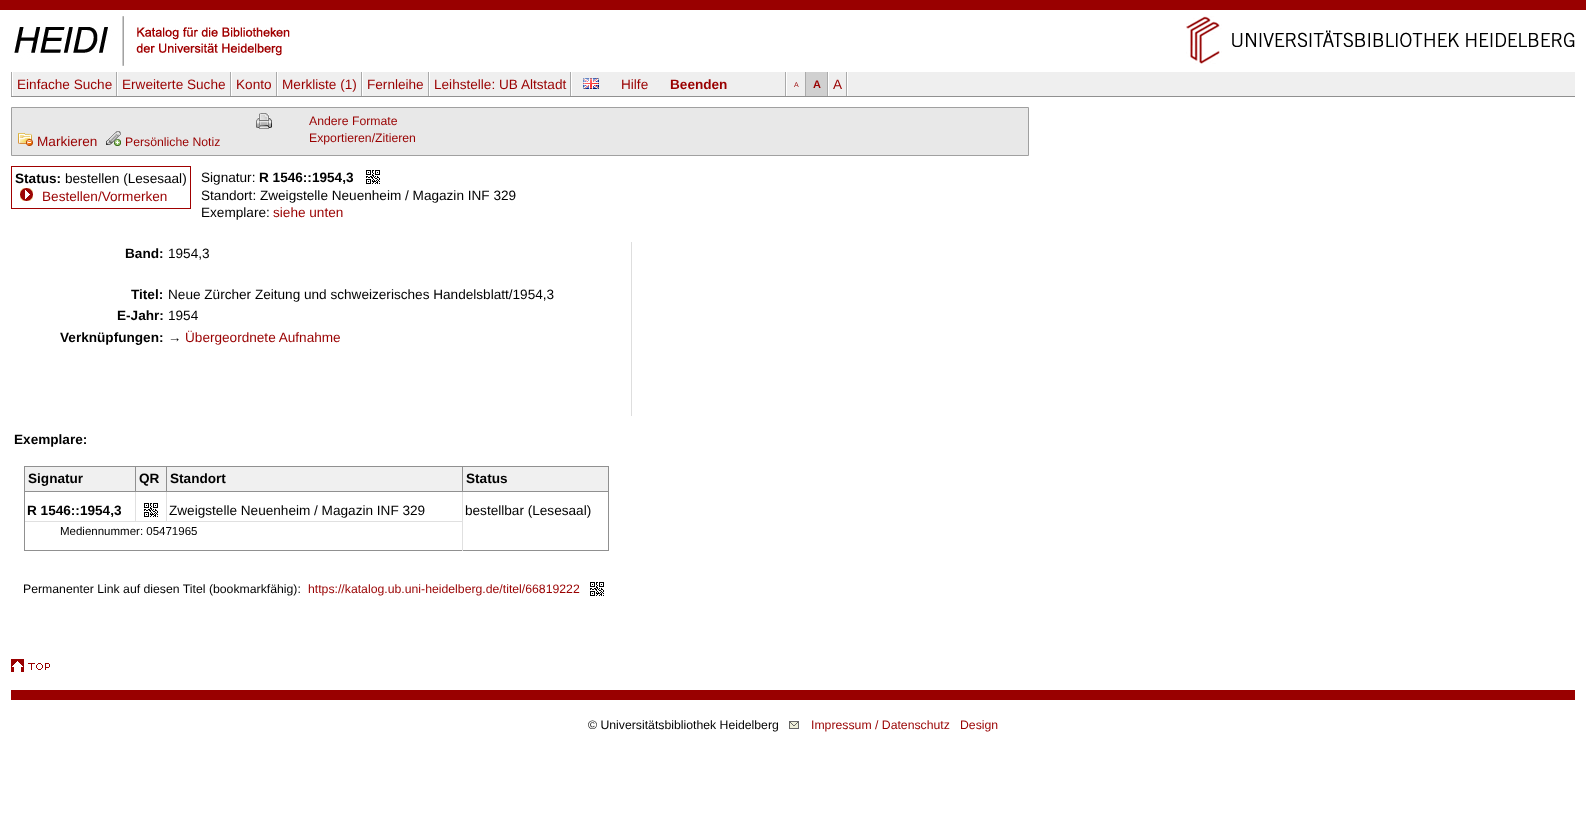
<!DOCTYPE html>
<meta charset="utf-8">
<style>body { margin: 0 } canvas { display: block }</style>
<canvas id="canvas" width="1586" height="840"></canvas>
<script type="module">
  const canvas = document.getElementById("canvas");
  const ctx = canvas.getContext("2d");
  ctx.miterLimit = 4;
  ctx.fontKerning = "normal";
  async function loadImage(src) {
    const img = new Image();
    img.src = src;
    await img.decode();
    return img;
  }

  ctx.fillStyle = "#ffffff";
  ctx.fillRect(0, 0, 1586, 840);
  ctx.fillStyle = "#990000";
  ctx.fillRect(0, 0, 1586, 10);
  ctx.drawImage(await loadImage("img1.png"), 14, 16, 276, 50);
  ctx.drawImage(await loadImage("img2.png"), 1186, 16, 389, 48);
  ctx.fillStyle = "#efefef";
  ctx.fillRect(13, 72, 1562, 24);
  ctx.fillStyle = "#909090";
  ctx.fillRect(11, 96, 1564, 1);
  ctx.fillStyle = "#ffffff";
  ctx.fillRect(571, 72, 1, 24);
  ctx.fillStyle = "#aaaaaa";
  ctx.fillRect(11, 72, 1, 24);
  ctx.fillRect(116, 72, 1, 24);
  ctx.font = "13.6px Liberation Sans";
  ctx.fillStyle = "#990000";
  ctx.fillText("Einfache Suche", 17, 89);
  ctx.fillStyle = "#aaaaaa";
  ctx.fillRect(230, 72, 1, 24);
  ctx.fillStyle = "#ffffff";
  ctx.fillRect(117, 72, 1, 24);
  ctx.fillStyle = "#990000";
  ctx.fillText("Erweiterte Suche", 122, 89);
  ctx.fillStyle = "#aaaaaa";
  ctx.fillRect(276, 72, 1, 24);
  ctx.fillStyle = "#ffffff";
  ctx.fillRect(231, 72, 1, 24);
  ctx.fillStyle = "#990000";
  ctx.fillText("Konto", 236, 89);
  ctx.fillStyle = "#aaaaaa";
  ctx.fillRect(361, 72, 1, 24);
  ctx.fillStyle = "#ffffff";
  ctx.fillRect(277, 72, 1, 24);
  ctx.fillStyle = "#990000";
  ctx.fillText("Merkliste (1)", 282, 89);
  ctx.fillStyle = "#aaaaaa";
  ctx.fillRect(428, 72, 1, 24);
  ctx.fillStyle = "#ffffff";
  ctx.fillRect(362, 72, 1, 24);
  ctx.fillStyle = "#990000";
  ctx.fillText("Fernleihe", 367, 89);
  ctx.fillStyle = "#aaaaaa";
  ctx.fillRect(570, 72, 1, 24);
  ctx.fillStyle = "#ffffff";
  ctx.fillRect(429, 72, 1, 24);
  ctx.fillStyle = "#990000";
  ctx.fillText("Leihstelle: UB Altstadt", 434, 89);
  ctx.drawImage(await loadImage("img3.png"), 583, 78, 16, 11);
  ctx.fillText("Hilfe", 621, 89);
  ctx.font = "bold 13.6px Liberation Sans";
  ctx.fillText("Beenden", 670, 89);
  ctx.fillStyle = "#ffffff";
  ctx.fillRect(847, 72, 1, 24);
  ctx.fillStyle = "#aaaaaa";
  ctx.fillRect(785, 72, 1, 24);
  ctx.fillRect(805, 72, 1, 24);
  ctx.fillStyle = "#ffffff";
  ctx.fillRect(786, 72, 1, 24);
  ctx.font = "7px Liberation Sans";
  ctx.fillStyle = "#990000";
  ctx.fillText("A", 794, 87);
  ctx.fillStyle = "#d0d0d0";
  ctx.fillRect(806, 72, 21, 24);
  ctx.fillStyle = "#aaaaaa";
  ctx.fillRect(827, 72, 1, 24);
  ctx.font = "bold 11px Liberation Sans";
  ctx.fillStyle = "#990000";
  ctx.fillText("A", 813, 88);
  ctx.fillStyle = "#aaaaaa";
  ctx.fillRect(846, 72, 1, 24);
  ctx.fillStyle = "#ffffff";
  ctx.fillRect(828, 72, 1, 24);
  ctx.font = "13.6px Liberation Sans";
  ctx.fillStyle = "#990000";
  ctx.fillText("A", 833, 89);
  ctx.fillStyle = "#e8e8e8";
  ctx.beginPath();
  ctx.rect(11.5, 107.5, 1017, 48);
  ctx.fill();
  ctx.strokeStyle = "#a0a0a0";
  ctx.stroke();
  ctx.drawImage(await loadImage("img4.png"), 18, 133, 15, 13);
  ctx.fillStyle = "#990000";
  ctx.fillText("Markieren", 37, 146);
  ctx.drawImage(await loadImage("img5.png"), 106, 131, 15, 15);
  ctx.font = "12.25px Liberation Sans";
  ctx.fillText("Persönliche Notiz", 125, 146);
  ctx.drawImage(await loadImage("img6.png"), 256, 113, 16, 16);
  ctx.fillText("Andere Formate", 309, 125);
  ctx.fillText("Exportieren/Zitieren", 309, 142);
  ctx.strokeStyle = "#a00000";
  ctx.strokeRect(11.5, 166.5, 179, 42);
  ctx.font = "bold 13.6px Liberation Sans";
  ctx.fillStyle = "#000000";
  ctx.fillText("Status:", 15, 183);
  ctx.font = "13.6px Liberation Sans";
  ctx.fillText("bestellen (Lesesaal)", 65, 183);
  ctx.drawImage(await loadImage("img7.png"), 20, 188, 13, 13);
  ctx.fillStyle = "#990000";
  ctx.fillText("Bestellen/Vormerken", 42, 201);
  ctx.fillStyle = "#000000";
  ctx.fillText("Signatur:", 201, 182);
  ctx.font = "bold 13.6px Liberation Sans";
  ctx.fillText("R 1546::1954,3", 259, 182);
  ctx.drawImage(await loadImage("img8.png"), 366, 170, 14, 14);
  ctx.font = "13.6px Liberation Sans";
  ctx.fillText("Standort: Zweigstelle Neuenheim / Magazin INF 329", 201, 200);
  ctx.fillText("Exemplare:", 201, 217);
  ctx.fillStyle = "#990000";
  ctx.fillText("siehe unten", 273, 217);
  ctx.font = "bold 13.6px Liberation Sans";
  ctx.fillStyle = "#000000";
  ctx.fillText("Band:", 125, 258);
  ctx.font = "13.6px Liberation Sans";
  ctx.fillText("1954,3", 168, 258);
  ctx.font = "bold 13.6px Liberation Sans";
  ctx.fillText("Titel:", 131, 299);
  ctx.font = "13.6px Liberation Sans";
  ctx.fillText("Neue Zürcher Zeitung und schweizerisches Handelsblatt/1954,3", 168, 299);
  ctx.font = "bold 13.6px Liberation Sans";
  ctx.fillText("E-Jahr:", 117, 320);
  ctx.font = "13.6px Liberation Sans";
  ctx.fillText("1954", 168, 320);
  ctx.font = "bold 13.6px Liberation Sans";
  ctx.fillText("Verknüpfungen:", 60, 342);
  ctx.font = "13.6px Liberation Sans";
  ctx.fillText("→", 168, 342);
  ctx.fillStyle = "#990000";
  ctx.fillText("Übergeordnete Aufnahme", 185, 342);
  ctx.fillStyle = "#dedede";
  ctx.fillRect(631, 242, 1, 174);
  ctx.font = "bold 13.6px Liberation Sans";
  ctx.fillStyle = "#000000";
  ctx.fillText("Exemplare:", 14, 444);
  ctx.fillStyle = "#909090";
  ctx.fillRect(24, 466, 585, 1);
  ctx.fillRect(608, 466, 1, 25);
  ctx.fillRect(24, 550, 585, 1);
  ctx.fillRect(24, 466, 1, 25);
  ctx.fillStyle = "#f0f0f0";
  ctx.fillRect(25, 467, 583, 24);
  ctx.fillStyle = "#909090";
  ctx.fillRect(608, 491, 1, 60);
  ctx.fillStyle = "#e0e0e0";
  ctx.fillRect(136, 521, 327, 1);
  ctx.fillRect(462, 491, 1, 60);
  ctx.fillStyle = "#909090";
  ctx.fillRect(462, 491, 147, 1);
  ctx.fillRect(462, 466, 1, 26);
  ctx.fillStyle = "#e0e0e0";
  ctx.fillRect(166, 491, 1, 31);
  ctx.fillStyle = "#909090";
  ctx.fillRect(166, 491, 297, 1);
  ctx.fillRect(166, 466, 1, 26);
  ctx.fillStyle = "#e0e0e0";
  ctx.fillRect(135, 491, 1, 31);
  ctx.fillStyle = "#909090";
  ctx.fillRect(135, 491, 32, 1);
  ctx.fillRect(135, 466, 1, 26);
  ctx.fillRect(24, 521, 1, 30);
  ctx.fillStyle = "#e0e0e0";
  ctx.fillRect(24, 521, 112, 1);
  ctx.fillStyle = "#909090";
  ctx.fillRect(24, 491, 1, 31);
  ctx.fillRect(24, 491, 112, 1);
  ctx.fillStyle = "#000000";
  ctx.fillText("Signatur", 28, 483);
  ctx.fillText("QR", 139, 483);
  ctx.fillText("Standort", 170, 483);
  ctx.fillText("Status", 466, 483);
  ctx.fillText("R 1546::1954,3", 27, 515);
  ctx.drawImage(await loadImage("img8.png"), 144, 503, 14, 14);
  ctx.font = "13.6px Liberation Sans";
  ctx.fillText("Zweigstelle Neuenheim / Magazin INF 329", 169, 515);
  ctx.fillText("bestellbar (Lesesaal)", 465, 515);
  ctx.font = "11.5px Liberation Sans";
  ctx.fillText("Mediennummer: 05471965", 60, 535);
  ctx.font = "12.25px Liberation Sans";
  ctx.fillText("Permanenter Link auf diesen Titel (bookmarkfähig):", 23, 593);
  ctx.fillStyle = "#990000";
  ctx.fillText("https://katalog.ub.uni-heidelberg.de/titel/66819222", 308, 593);
  ctx.drawImage(await loadImage("img8.png"), 590, 582, 14, 14);
  ctx.drawImage(await loadImage("img9.png"), 11, 659, 39, 13);
  ctx.fillRect(11, 690, 1564, 10);
  ctx.fillStyle = "#000000";
  ctx.fillText("© Universitätsbibliothek Heidelberg", 588, 729);
  ctx.drawImage(await loadImage("img10.png"), 789, 721, 10, 8);
  ctx.fillStyle = "#990000";
  ctx.fillText("Impressum / Datenschutz", 811, 729);
  ctx.fillText("Design", 960, 729);
</script>
